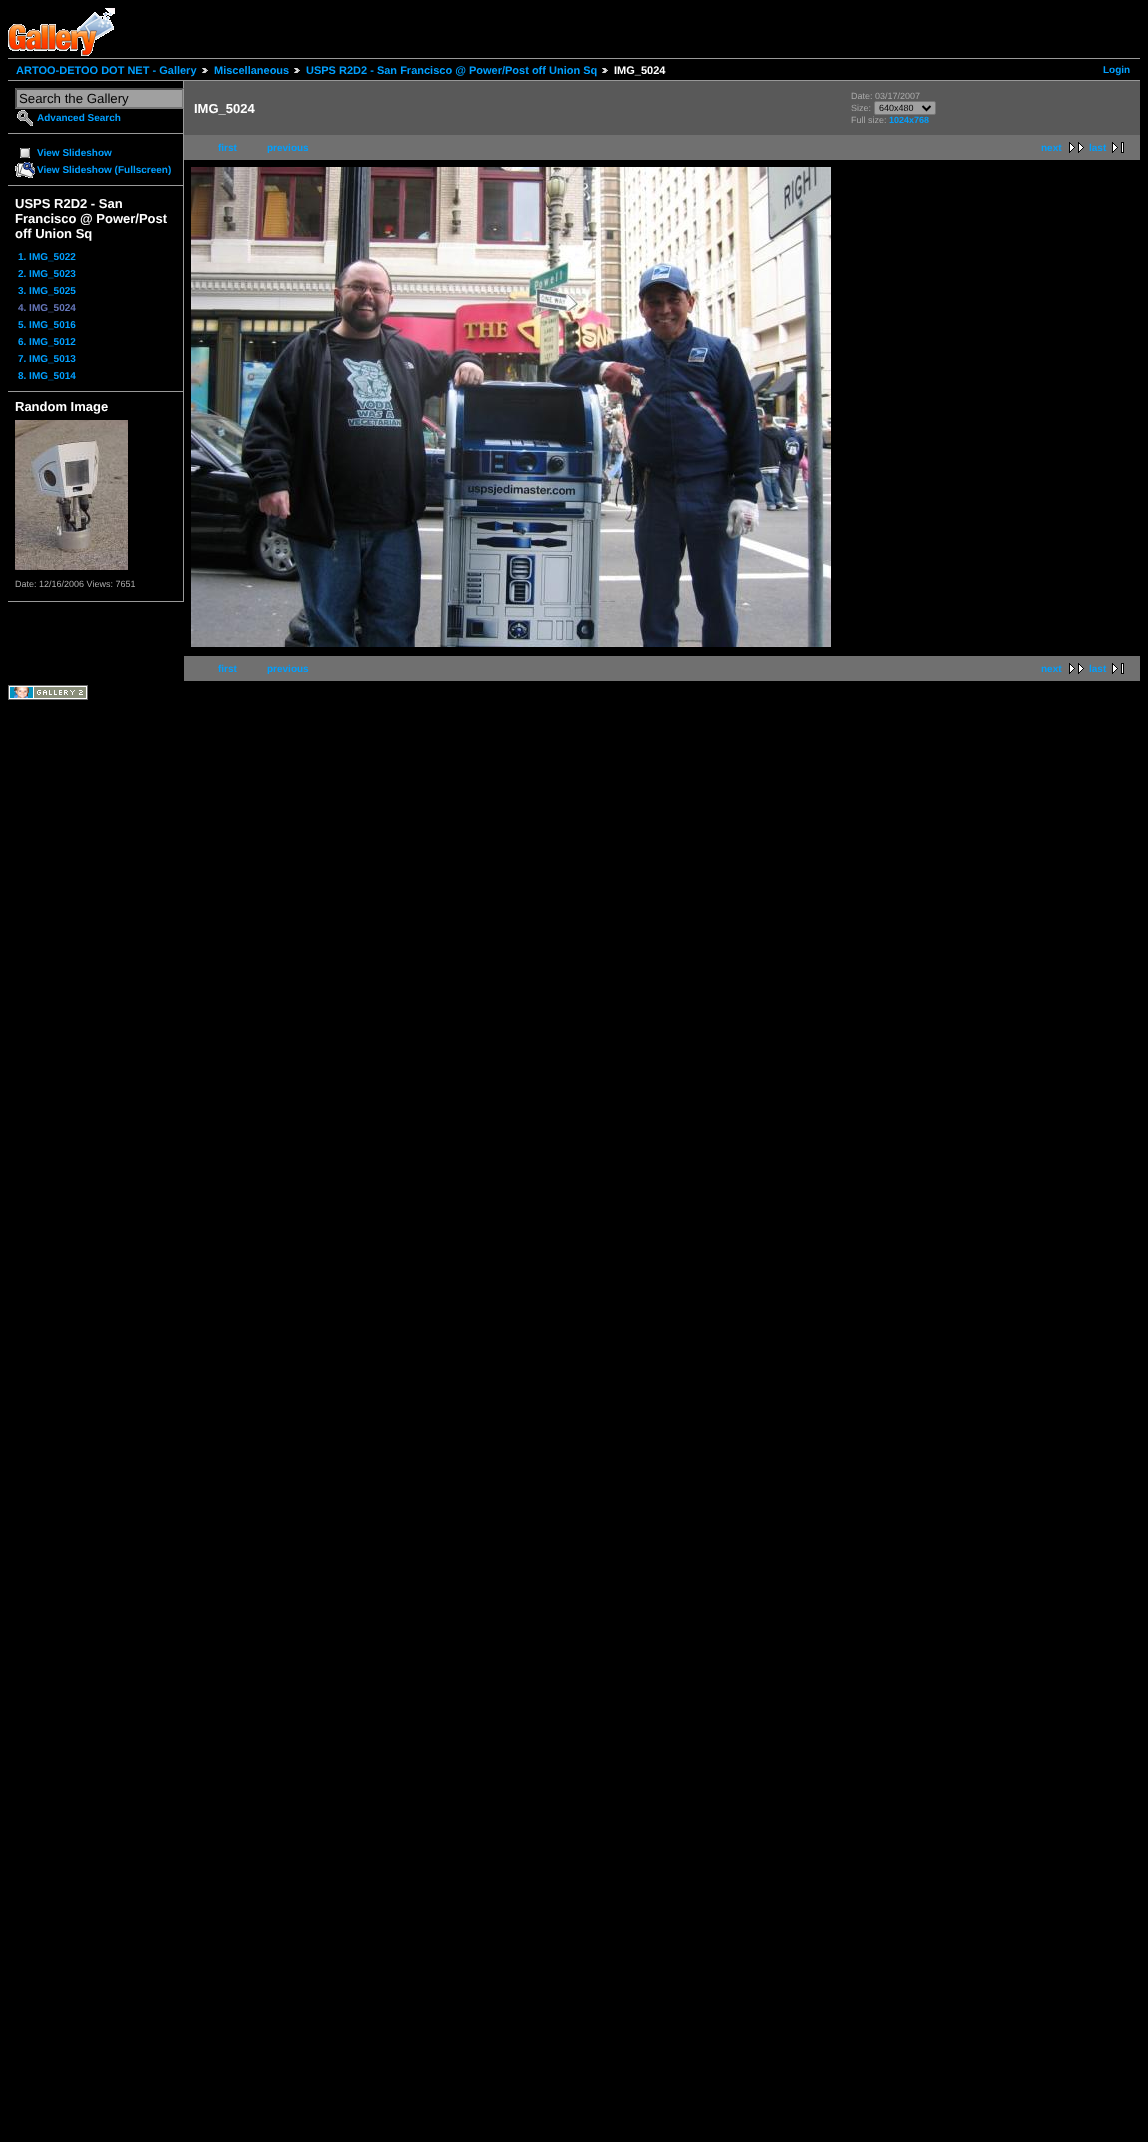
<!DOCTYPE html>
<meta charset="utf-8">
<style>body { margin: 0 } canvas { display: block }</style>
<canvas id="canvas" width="1148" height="2142"></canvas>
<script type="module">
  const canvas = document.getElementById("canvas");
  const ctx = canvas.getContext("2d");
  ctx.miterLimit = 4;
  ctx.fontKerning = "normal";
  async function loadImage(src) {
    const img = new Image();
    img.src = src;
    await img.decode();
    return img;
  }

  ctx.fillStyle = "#000000";
  ctx.fillRect(0, 0, 1148, 2142);
  ctx.drawImage(await loadImage("img1.png"), 8, 8, 107, 48);
  ctx.fillStyle = "#999999";
  ctx.fillRect(8, 58, 1132, 1);
  ctx.fillRect(8, 80, 1132, 1);
  ctx.font = "bold 11px Liberation Sans";
  ctx.fillStyle = "#00a0ff";
  ctx.fillText("ARTOO-DETOO DOT NET - Gallery", 16, 74);
  ctx.drawImage(await loadImage("img2.png"), 202, 68, 6, 5);
  ctx.fillText("Miscellaneous", 214, 74);
  ctx.drawImage(await loadImage("img2.png"), 294, 68, 6, 5);
  ctx.fillText("USPS R2D2 - San Francisco @ Power/Post off Union Sq", 306, 74);
  ctx.drawImage(await loadImage("img2.png"), 602, 68, 6, 5);
  ctx.fillStyle = "#ffffff";
  ctx.fillText("IMG_5024", 614, 74);
  ctx.font = "bold 10px Liberation Sans";
  ctx.fillStyle = "#00a0ff";
  ctx.fillText("Login", 1103, 73);
  ctx.fillStyle = "#999999";
  ctx.fillRect(183, 81, 1, 521);
  ctx.fillRect(8, 133, 175, 1);
  ctx.fillStyle = "#a0a0a0";
  ctx.fillRect(15, 88, 168, 21);
  ctx.fillStyle = "#4f4f4f";
  ctx.beginPath();
  ctx.moveTo(15, 88);
  ctx.lineTo(184, 88);
  ctx.lineTo(182, 90);
  ctx.lineTo(17, 90);
  ctx.closePath();
  ctx.fill();
  ctx.save();
  ctx.beginPath();
  ctx.rect(8, 81, 175, 521);
  ctx.clip();
  ctx.fillStyle = "#767676";
  ctx.beginPath();
  ctx.moveTo(184, 88);
  ctx.lineTo(184, 109);
  ctx.lineTo(182, 107);
  ctx.lineTo(182, 90);
  ctx.closePath();
  ctx.fill();
  ctx.restore();
  ctx.fillStyle = "#767676";
  ctx.beginPath();
  ctx.moveTo(184, 109);
  ctx.lineTo(15, 109);
  ctx.lineTo(17, 107);
  ctx.lineTo(182, 107);
  ctx.closePath();
  ctx.fill();
  ctx.fillStyle = "#4f4f4f";
  ctx.beginPath();
  ctx.moveTo(15, 109);
  ctx.lineTo(15, 88);
  ctx.lineTo(17, 90);
  ctx.lineTo(17, 107);
  ctx.closePath();
  ctx.fill();
  ctx.font = "13.25px Liberation Sans";
  ctx.fillStyle = "#000000";
  ctx.fillText("Search the Gallery", 19, 103);
  ctx.drawImage(await loadImage("img3.png"), 17, 110, 16, 16);
  ctx.font = "bold 10px Liberation Sans";
  ctx.fillStyle = "#00a0ff";
  ctx.fillText("Advanced Search", 37, 121);
  ctx.fillStyle = "#999999";
  ctx.fillRect(8, 185, 175, 1);
  ctx.drawImage(await loadImage("img4.png"), 20, 148, 10, 10);
  ctx.fillStyle = "#00a0ff";
  ctx.fillText("View Slideshow", 37, 156);
  ctx.drawImage(await loadImage("img5.png"), 15, 162, 20, 16);
  ctx.fillText("View Slideshow (Fullscreen)", 37, 173);
  ctx.fillStyle = "#999999";
  ctx.fillRect(8, 391, 175, 1);
  ctx.font = "bold 13px Liberation Sans";
  ctx.fillStyle = "#ffffff";
  ctx.fillText("USPS R2D2 - San", 15, 208);
  ctx.fillText("Francisco @ Power/Post", 15, 223);
  ctx.fillText("off Union Sq", 15, 238);
  ctx.font = "bold 10px Liberation Sans";
  ctx.fillStyle = "#00a0ff";
  ctx.fillText("1. IMG_5022", 18, 260);
  ctx.fillText("2. IMG_5023", 18, 277);
  ctx.fillText("3. IMG_5025", 18, 294);
  ctx.fillStyle = "#6677bb";
  ctx.fillText("4. IMG_5024", 18, 311);
  ctx.fillStyle = "#00a0ff";
  ctx.fillText("5. IMG_5016", 18, 328);
  ctx.fillText("6. IMG_5012", 18, 345);
  ctx.fillText("7. IMG_5013", 18, 362);
  ctx.fillText("8. IMG_5014", 18, 379);
  ctx.fillStyle = "#999999";
  ctx.fillRect(8, 601, 175, 1);
  ctx.font = "bold 13px Liberation Sans";
  ctx.fillStyle = "#ffffff";
  ctx.fillText("Random Image", 15, 411);
  ctx.drawImage(await loadImage("img6.png"), 15, 420, 113, 150);
  ctx.font = "9px Liberation Sans";
  ctx.fillStyle = "#aaaaaa";
  ctx.fillText("Date: 12/16/2006 Views: 7651", 15, 587);
  ctx.fillStyle = "#595959";
  ctx.fillRect(184, 81, 956, 54);
  ctx.font = "bold 13px Liberation Sans";
  ctx.fillStyle = "#ffffff";
  ctx.fillText("IMG_5024", 194, 113);
  ctx.font = "9px Liberation Sans";
  ctx.fillStyle = "#aaaaaa";
  ctx.fillText("Date: 03/17/2007", 851, 99);
  ctx.fillText("Size:", 851, 111);
  ctx.fillStyle = "#a0a0a0";
  ctx.beginPath();
  ctx.roundRect(874.5, 101.5, 61, 13, 1.5);
  ctx.fill();
  ctx.strokeStyle = "#767676";
  ctx.stroke();
  ctx.beginPath();
  ctx.moveTo(922.5, 106);
  ctx.lineTo(926.5, 110);
  ctx.lineTo(930.5, 106);
  ctx.strokeStyle = "#000000";
  ctx.lineWidth = 2;
  ctx.stroke();
  ctx.fillStyle = "#000000";
  ctx.fillText("640x480", 879, 111);
  ctx.fillStyle = "#aaaaaa";
  ctx.fillText("Full size:", 851, 123);
  ctx.font = "bold 9px Liberation Sans";
  ctx.fillStyle = "#00a0ff";
  ctx.fillText("1024x768", 889, 123);
  ctx.fillStyle = "#707070";
  ctx.fillRect(184, 135, 956, 25);
  ctx.font = "bold 10px Liberation Sans";
  ctx.fillStyle = "#00a0ff";
  ctx.fillText("first", 218, 151);
  ctx.fillText("previous", 267, 151);
  ctx.fillText("next", 1041, 151);
  ctx.drawImage(await loadImage("img7.png"), 1069, 142, 15, 11);
  ctx.fillText("last", 1089, 151);
  ctx.drawImage(await loadImage("img8.png"), 1112, 142, 12, 11);
  ctx.drawImage(await loadImage("img9.png"), 191, 167, 640, 480);
  ctx.fillStyle = "#707070";
  ctx.fillRect(184, 656, 956, 25);
  ctx.fillStyle = "#00a0ff";
  ctx.fillText("first", 218, 672);
  ctx.fillText("previous", 267, 672);
  ctx.fillText("next", 1041, 672);
  ctx.drawImage(await loadImage("img7.png"), 1069, 663, 15, 11);
  ctx.fillText("last", 1089, 672);
  ctx.drawImage(await loadImage("img8.png"), 1112, 663, 12, 11);
  ctx.drawImage(await loadImage("img10.png"), 8, 685, 80, 15);
</script>
